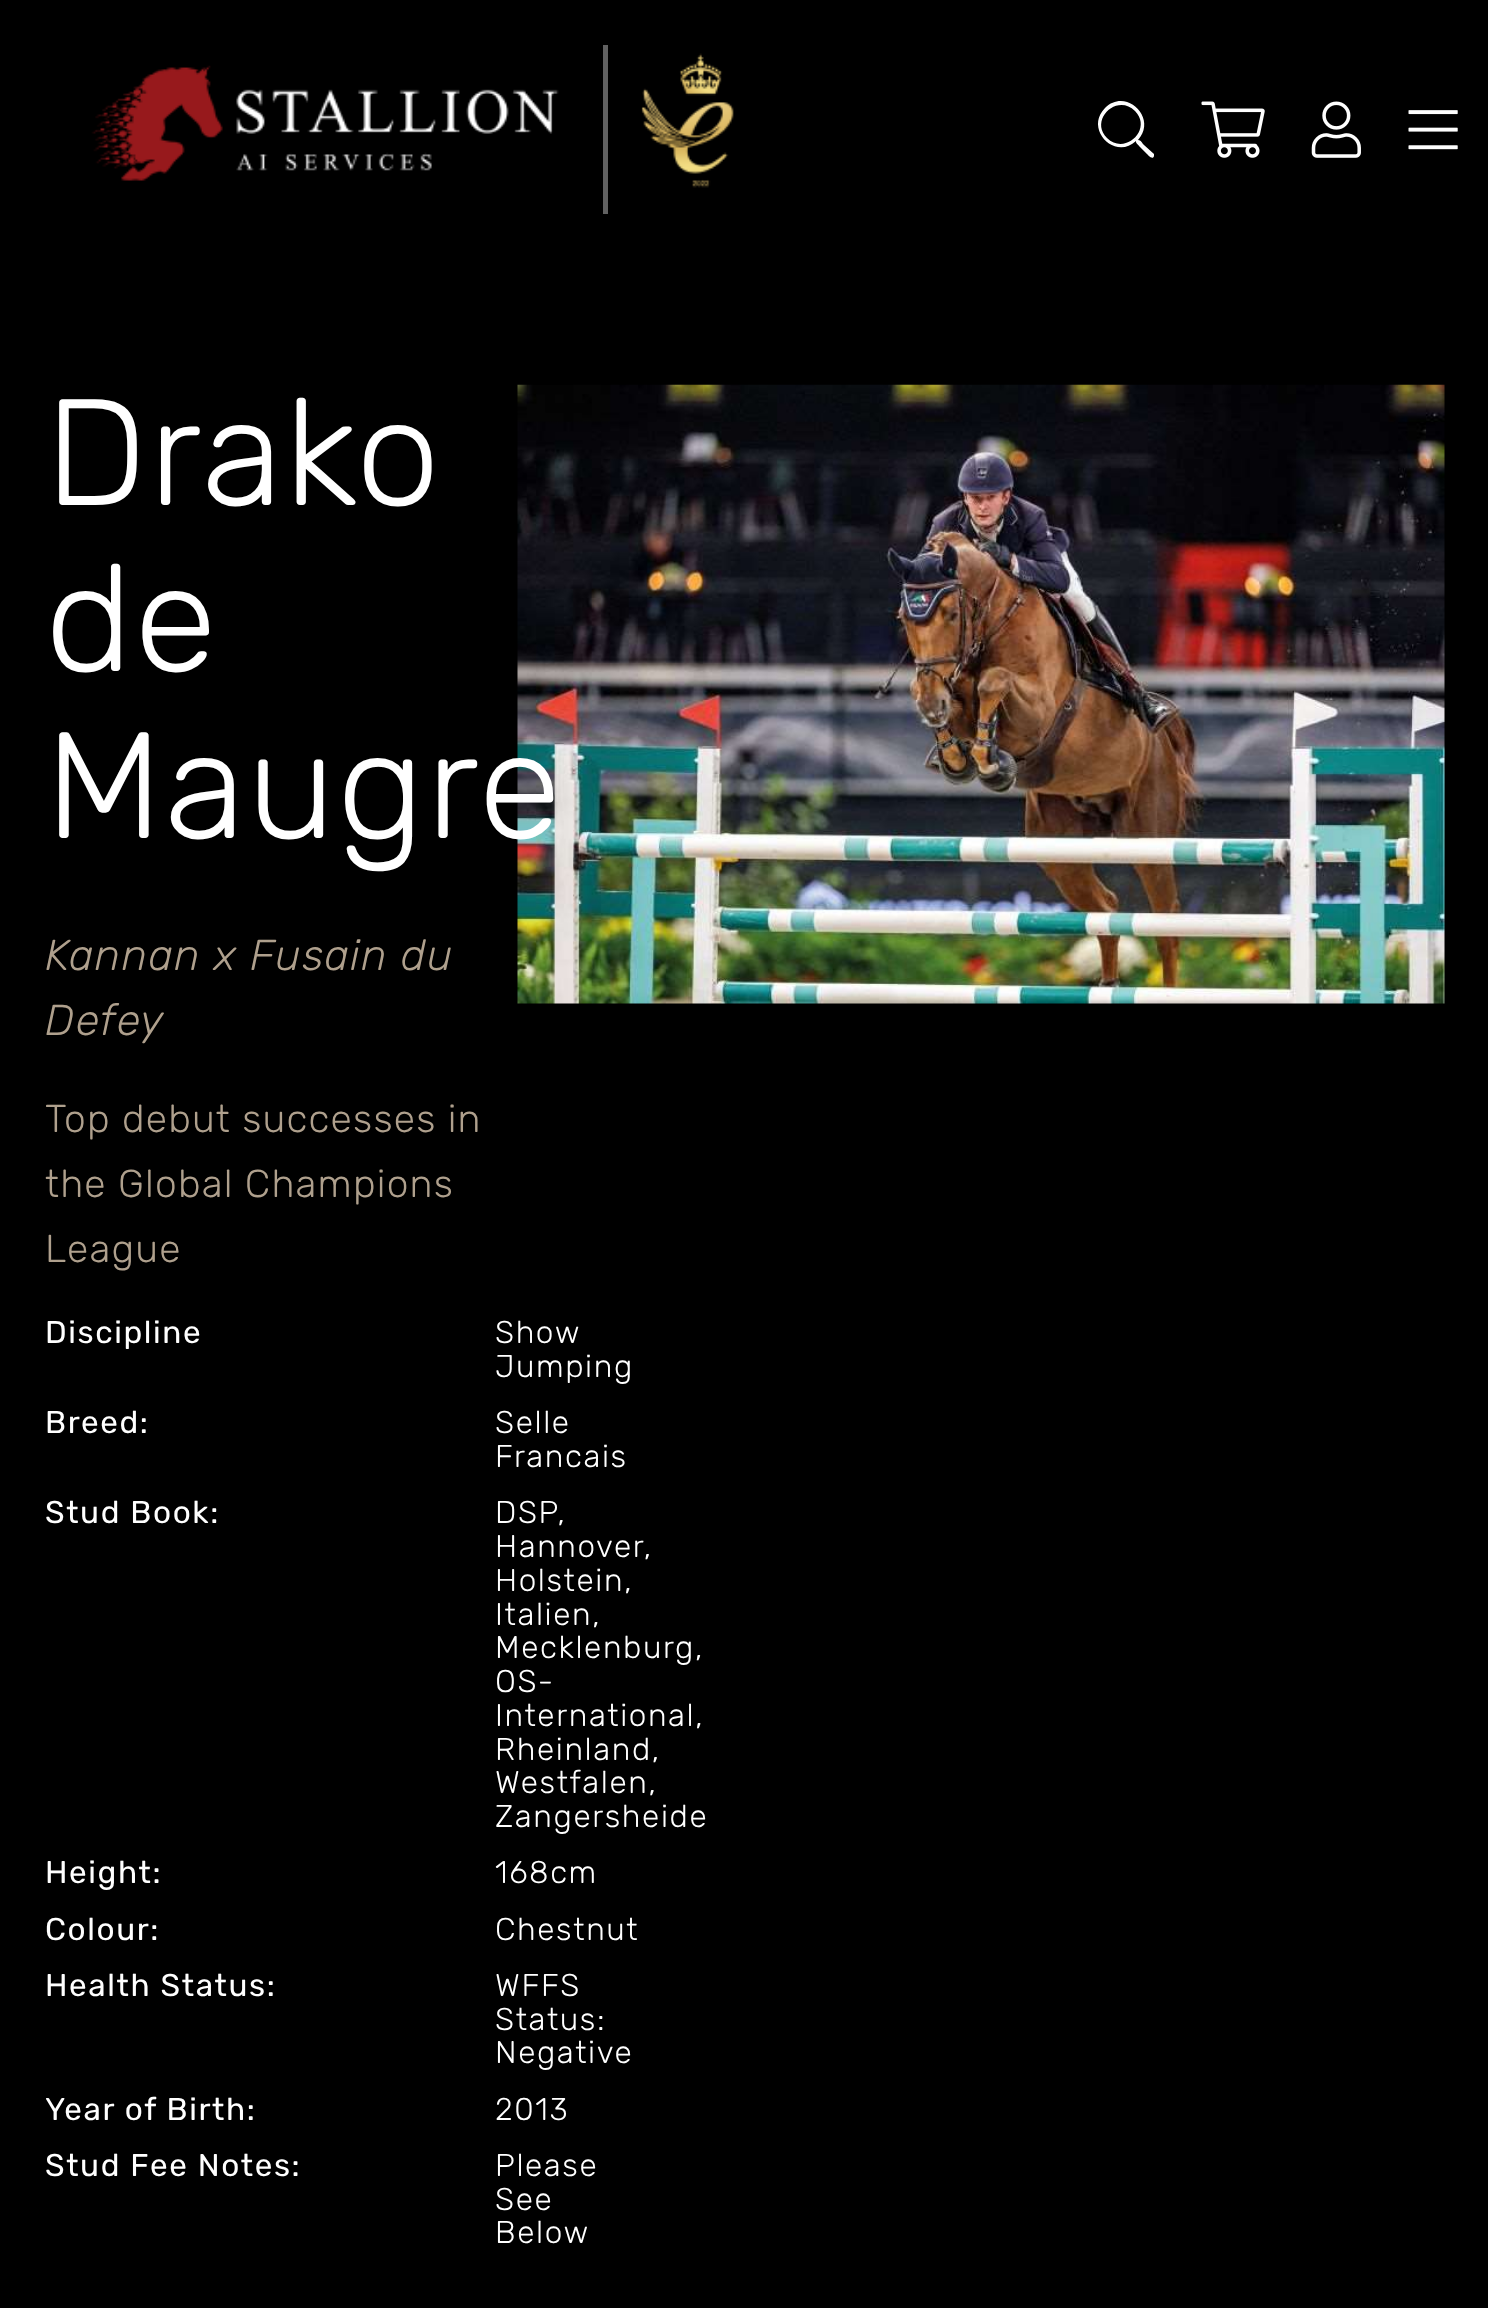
<!DOCTYPE html>
<meta charset="utf-8">
<style>body { margin: 0 } canvas { display: block }</style>
<canvas id="canvas" width="1488" height="2308"></canvas>
<script type="module">
  const canvas = document.getElementById("canvas");
  const ctx = canvas.getContext("2d");
  ctx.miterLimit = 4;
  ctx.fontKerning = "normal";
  async function loadImage(src) {
    const img = new Image();
    img.src = src;
    await img.decode();
    return img;
  }

  ctx.fillStyle = "#000000";
  ctx.fillRect(0, 0, 1488, 2308);
  ctx.fillStyle = "#616161";
  ctx.fillRect(603, 45, 5, 169);
  ctx.drawImage(await loadImage("img1.png"), 91, 65, 468, 116);
  ctx.drawImage(await loadImage("img2.png"), 641, 53, 93, 135);
  ctx.fillStyle = "#fefefe";
  ctx.beginPath();
  ctx.moveTo(1154, 154);
  ctx.lineTo(1154, 156);
  ctx.bezierCurveTo(1153, 161, 1147, 154, 1146, 153);
  ctx.lineTo(1139, 146);
  ctx.bezierCurveTo(1137, 143, 1136, 144, 1136, 141);
  ctx.bezierCurveTo(1115, 161, 1084, 129, 1105, 108);
  ctx.bezierCurveTo(1126, 87, 1158, 118, 1138, 140);
  ctx.bezierCurveTo(1141, 140, 1142, 143, 1144, 145);
  ctx.closePath();
  ctx.moveTo(1107, 138);
  ctx.bezierCurveTo(1125, 156, 1153, 129, 1135, 111);
  ctx.bezierCurveTo(1117, 93, 1089, 120, 1107, 138);
  ctx.closePath();
  ctx.fill();
  ctx.drawImage(await loadImage("img3.png"), 1201, 101, 64, 57);
  ctx.drawImage(await loadImage("img4.png"), 1311, 101, 50, 57);
  ctx.drawImage(await loadImage("img5.png"), 1408, 110, 50, 40);
  ctx.letterSpacing = "1.6px";
  ctx.font = "300 151px Rubik";
  ctx.fillStyle = "#ffffff";
  ctx.fillText("Drako", 45, 505);
  ctx.fillText("de", 45, 671);
  ctx.drawImage(await loadImage("img6.png"), 517, 384, 928, 620);
  ctx.fillText("Maugre", 45, 838);
  ctx.letterSpacing = "1.25px";
  ctx.font = "italic 300 43.25px Rubik";
  ctx.fillStyle = "#afa08d";
  ctx.fillText("Kannan x Fusain du", 45, 970);
  ctx.fillText("Defey", 45, 1035);
  ctx.letterSpacing = "1.2px";
  ctx.font = "300 38.9px Rubik";
  ctx.fillText("Top debut successes in", 45, 1132);
  ctx.fillText("the Global Champions", 45, 1197);
  ctx.fillText("League", 45, 1262);
  ctx.letterSpacing = "1.6px";
  ctx.font = "31.5px Rubik";
  ctx.fillStyle = "#ffffff";
  ctx.fillText("Discipline", 45, 1343);
  ctx.font = "300 31.5px Rubik";
  ctx.fillText("Show", 495, 1343);
  ctx.fillText("Jumping", 495, 1377);
  ctx.font = "31.5px Rubik";
  ctx.fillText("Breed:", 45, 1433);
  ctx.font = "300 31.5px Rubik";
  ctx.fillText("Selle", 495, 1433);
  ctx.fillText("Francais", 495, 1467);
  ctx.font = "31.5px Rubik";
  ctx.fillText("Stud Book:", 45, 1523);
  ctx.font = "300 31.5px Rubik";
  ctx.fillText("DSP,", 495, 1523);
  ctx.fillText("Hannover,", 495, 1557);
  ctx.fillText("Holstein,", 495, 1591);
  ctx.fillText("Italien,", 495, 1625);
  ctx.fillText("Mecklenburg,", 495, 1658);
  ctx.fillText("OS-", 495, 1692);
  ctx.fillText("International,", 495, 1726);
  ctx.fillText("Rheinland,", 495, 1760);
  ctx.fillText("Westfalen,", 495, 1793);
  ctx.fillText("Zangersheide", 495, 1827);
  ctx.font = "31.5px Rubik";
  ctx.fillText("Height:", 45, 1883);
  ctx.font = "300 31.5px Rubik";
  ctx.fillText("168cm", 495, 1883);
  ctx.font = "31.5px Rubik";
  ctx.fillText("Colour:", 45, 1940);
  ctx.font = "300 31.5px Rubik";
  ctx.fillText("Chestnut", 495, 1940);
  ctx.font = "31.5px Rubik";
  ctx.fillText("Health Status:", 45, 1996);
  ctx.font = "300 31.5px Rubik";
  ctx.fillText("WFFS", 495, 1996);
  ctx.fillText("Status:", 495, 2030);
  ctx.fillText("Negative", 495, 2063);
  ctx.font = "31.5px Rubik";
  ctx.fillText("Year of Birth:", 45, 2120);
  ctx.font = "300 31.5px Rubik";
  ctx.fillText("2013", 495, 2120);
  ctx.font = "31.5px Rubik";
  ctx.fillText("Stud Fee Notes:", 45, 2176);
  ctx.font = "300 31.5px Rubik";
  ctx.fillText("Please", 495, 2176);
  ctx.fillText("See", 495, 2210);
  ctx.fillText("Below", 495, 2243);
</script>
